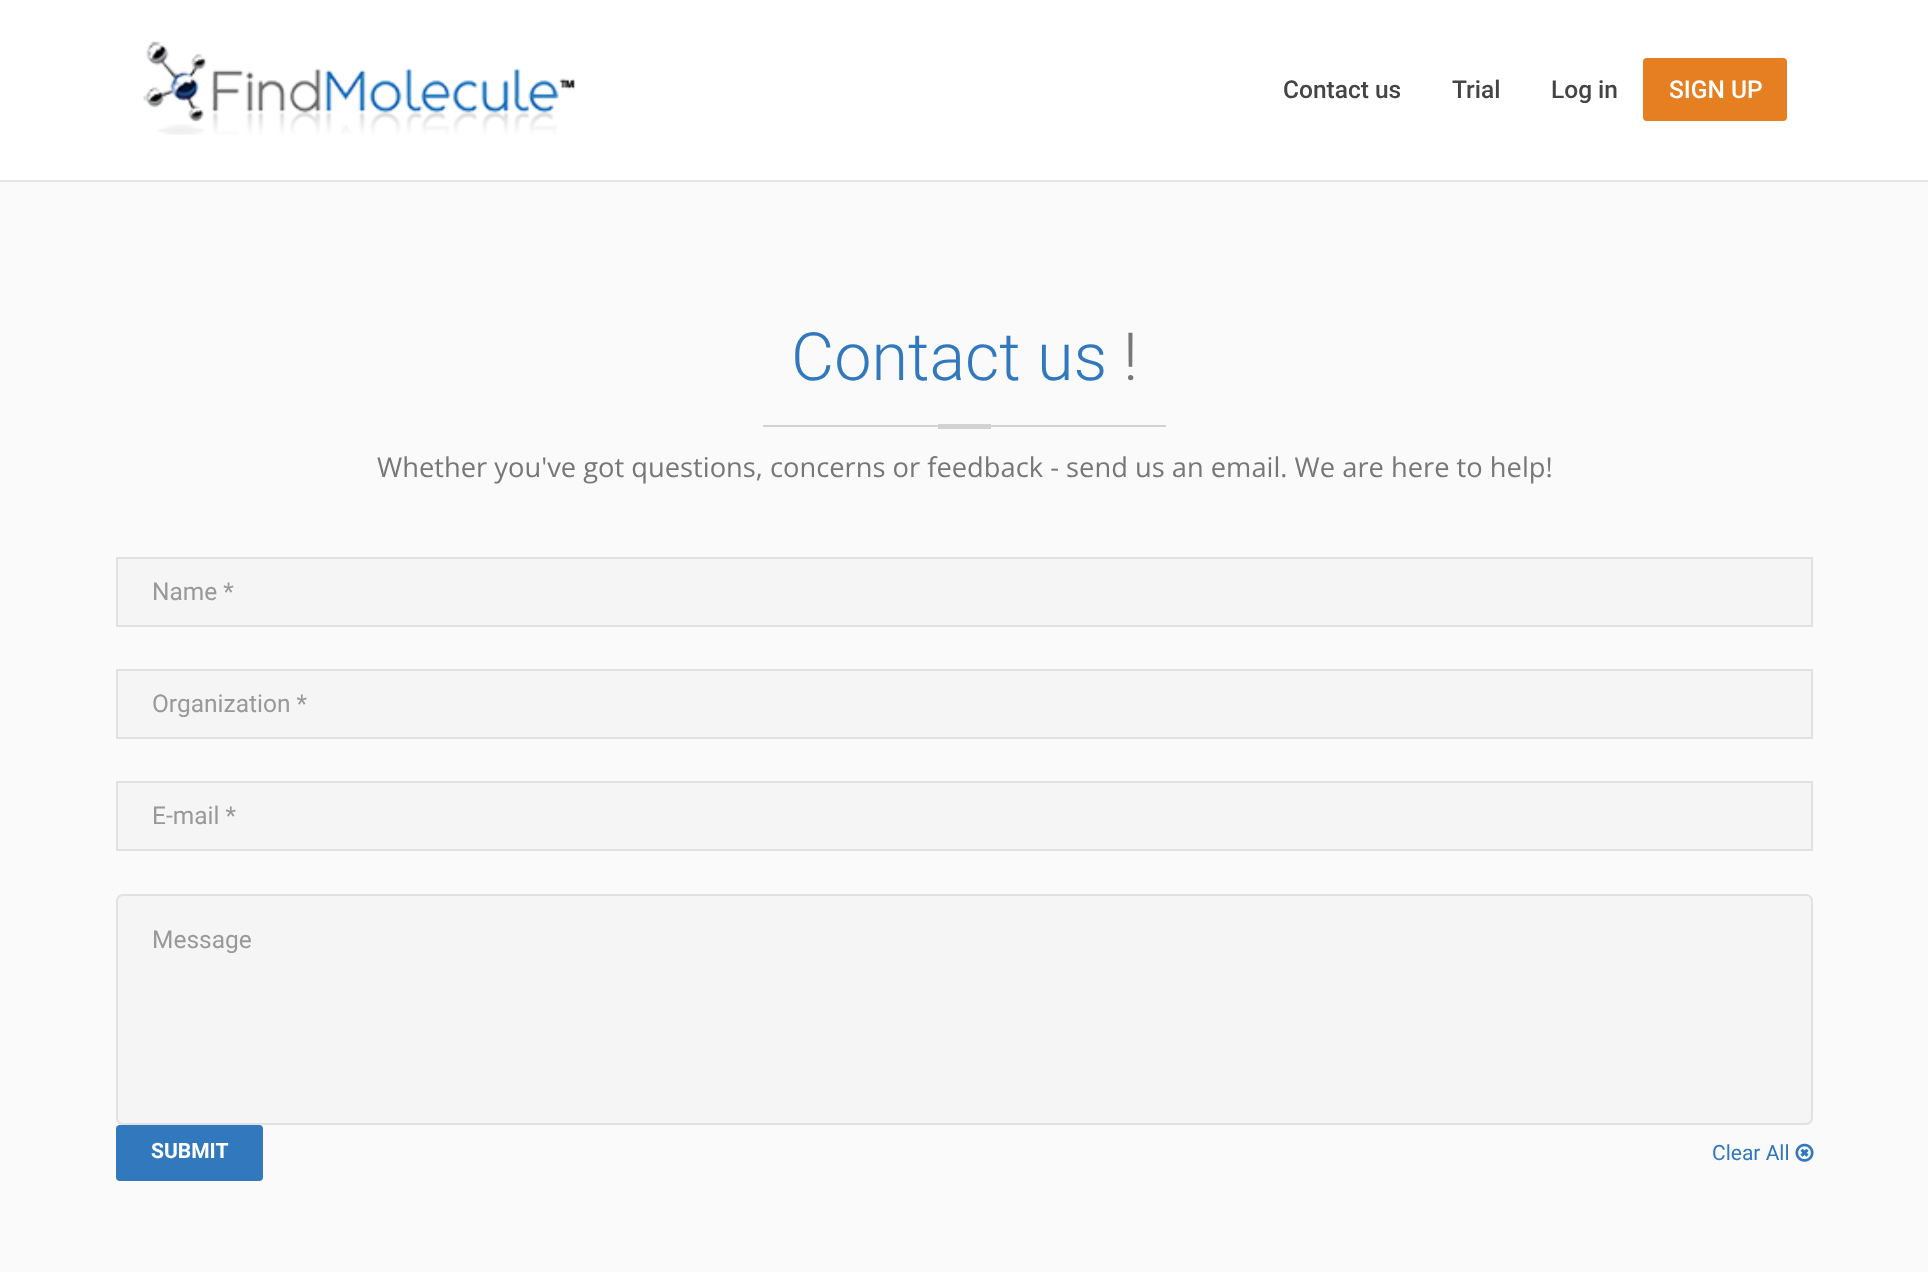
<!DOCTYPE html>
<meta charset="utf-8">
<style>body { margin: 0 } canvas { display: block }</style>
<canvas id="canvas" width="1928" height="1272"></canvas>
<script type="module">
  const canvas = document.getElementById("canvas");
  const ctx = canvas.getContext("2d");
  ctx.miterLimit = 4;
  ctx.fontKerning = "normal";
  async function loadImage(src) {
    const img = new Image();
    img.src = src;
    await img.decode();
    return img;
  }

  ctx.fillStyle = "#fafafa";
  ctx.fillRect(0, 0, 1928, 1272);
  ctx.fillStyle = "#ffffff";
  ctx.fillRect(0, 0, 1928, 180);
  ctx.fillStyle = "#e5e5e5";
  ctx.fillRect(0, 180, 1928, 2);
  ctx.drawImage(await loadImage("img1.png"), 143, 41, 432, 94);
  ctx.font = "500 24.5px Roboto";
  ctx.fillStyle = "#444444";
  ctx.fillText("Contact us", 1283, 98);
  ctx.fillText("Trial", 1452, 98);
  ctx.fillText("Log in", 1551, 98);
  ctx.fillStyle = "#e67e22";
  ctx.beginPath();
  ctx.roundRect(1643, 58, 144, 63, 4);
  ctx.fill();
  ctx.fillStyle = "#ffffff";
  ctx.fillText("SIGN UP", 1669, 98);
  ctx.font = "300 66.5px Roboto";
  ctx.fillStyle = "#3178bd";
  ctx.fillText("Contact us", 791, 380);
  ctx.fillStyle = "#777777";
  ctx.fillText("!", 1123, 380);
  ctx.fillStyle = "#d3d2d2";
  ctx.fillRect(938, 424, 53, 5);
  ctx.fillRect(763, 425, 175, 2);
  ctx.fillRect(991, 425, 175, 2);
  ctx.font = "27.3px Open Sans";
  ctx.fillStyle = "#777777";
  ctx.fillText("Whether you've got questions, concerns or feedback - send us an email. We are here to help!", 377, 477);
  ctx.fillStyle = "#f5f5f5";
  ctx.beginPath();
  ctx.rect(117, 558, 1695, 68);
  ctx.fill();
  ctx.strokeStyle = "#e1e1e1";
  ctx.lineWidth = 2;
  ctx.stroke();
  ctx.font = "24.5px Roboto";
  ctx.fillStyle = "#999999";
  ctx.fillText("Name *", 152, 600);
  ctx.fillStyle = "#f5f5f5";
  ctx.beginPath();
  ctx.rect(117, 670, 1695, 68);
  ctx.fill();
  ctx.stroke();
  ctx.fillStyle = "#999999";
  ctx.fillText("Organization *", 152, 712);
  ctx.fillStyle = "#f5f5f5";
  ctx.beginPath();
  ctx.rect(117, 782, 1695, 68);
  ctx.fill();
  ctx.stroke();
  ctx.fillStyle = "#999999";
  ctx.fillText("E-mail *", 152, 824);
  ctx.fillStyle = "#f5f5f5";
  ctx.beginPath();
  ctx.roundRect(117, 895, 1695, 229, 6);
  ctx.fill();
  ctx.stroke();
  ctx.fillStyle = "#999999";
  ctx.fillText("Message", 152, 948);
  ctx.fillStyle = "#3178bd";
  ctx.beginPath();
  ctx.roundRect(116, 1125, 147, 56, 4);
  ctx.fill();
  ctx.font = "bold 21px Roboto";
  ctx.fillStyle = "#ffffff";
  ctx.fillText("SUBMIT", 151, 1158);
  ctx.font = "21px Roboto";
  ctx.fillStyle = "#3178bd";
  ctx.fillText("Clear All", 1712, 1160);
  ctx.drawImage(await loadImage("img2.png"), 1795, 1143, 19, 19);
</script>
